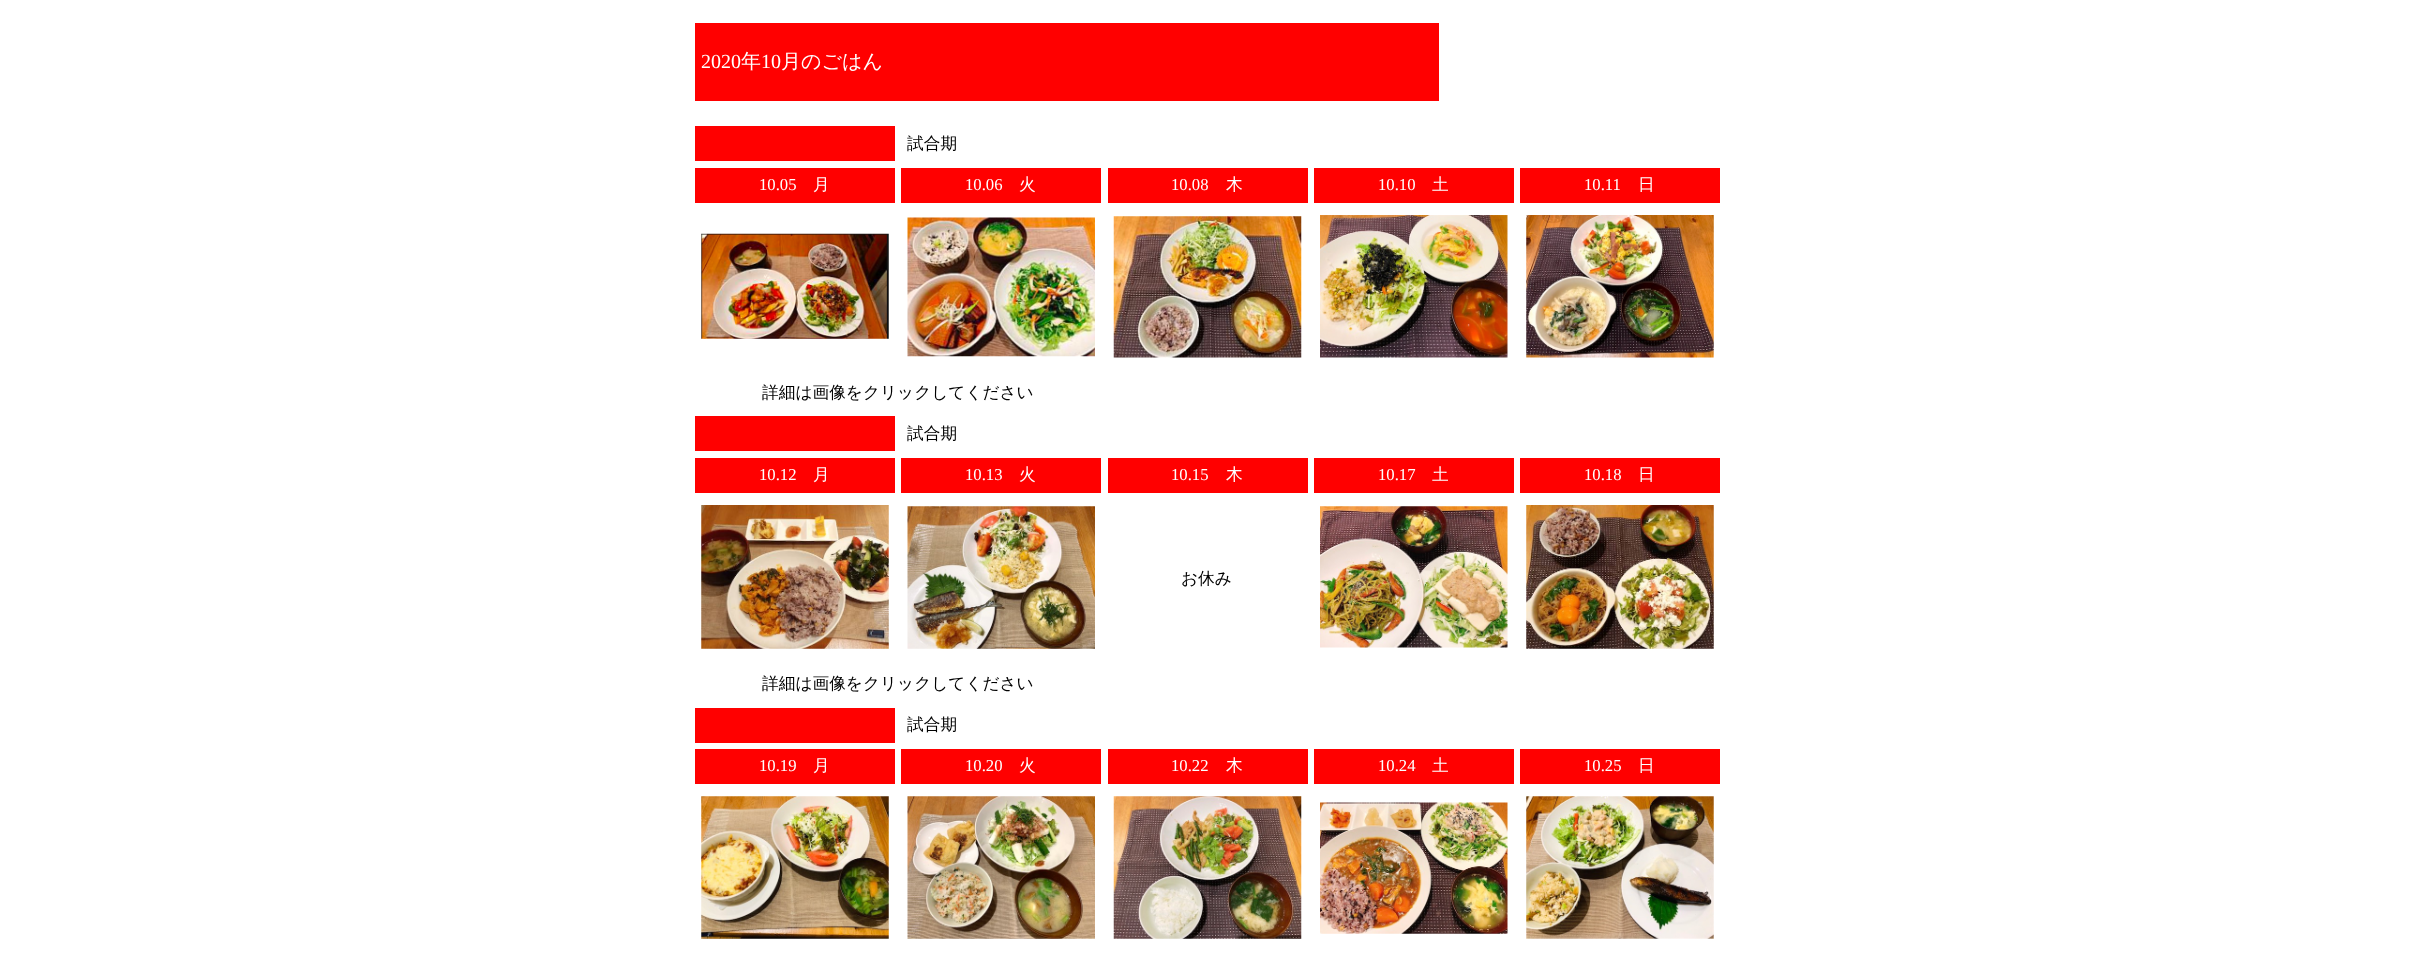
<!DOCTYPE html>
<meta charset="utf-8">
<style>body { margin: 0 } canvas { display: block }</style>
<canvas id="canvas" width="2413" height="967"></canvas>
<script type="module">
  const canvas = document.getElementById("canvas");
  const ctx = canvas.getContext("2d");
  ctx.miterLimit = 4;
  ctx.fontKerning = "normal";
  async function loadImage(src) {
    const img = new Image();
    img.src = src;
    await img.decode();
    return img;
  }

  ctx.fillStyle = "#ffffff";
  ctx.fillRect(0, 0, 2413, 967);
  ctx.fillStyle = "#ff0000";
  ctx.fillRect(695, 23, 744, 78);
  ctx.font = "20px Liberation Serif";
  ctx.fillStyle = "#ffffff";
  ctx.fillText("2020", 701, 68);
  ctx.font = "500 20px WenQuanYi Zen Hei";
  ctx.fillText("年", 741, 68);
  ctx.font = "20px Liberation Serif";
  ctx.fillText("10", 761, 68);
  ctx.font = "500 20px WenQuanYi Zen Hei";
  ctx.fillText("月のごはん", 781, 68);
  ctx.fillStyle = "#ff0000";
  ctx.fillRect(695, 126, 200, 35);
  ctx.font = "500 16.7px WenQuanYi Zen Hei";
  ctx.fillStyle = "#000000";
  ctx.fillText("試合期", 907, 149);
  ctx.fillStyle = "#ff0000";
  ctx.fillRect(695, 168, 200, 35);
  ctx.font = "16.7px Liberation Serif";
  ctx.fillStyle = "#ffffff";
  ctx.fillText("10.05", 759, 190);
  ctx.font = "500 16.7px WenQuanYi Zen Hei";
  ctx.fillText("月", 813, 190);
  ctx.fillStyle = "#ff0000";
  ctx.fillRect(901, 168, 200, 35);
  ctx.font = "16.7px Liberation Serif";
  ctx.fillStyle = "#ffffff";
  ctx.fillText("10.06", 965, 190);
  ctx.font = "500 16.7px WenQuanYi Zen Hei";
  ctx.fillText("火", 1019, 190);
  ctx.fillStyle = "#ff0000";
  ctx.fillRect(1108, 168, 200, 35);
  ctx.font = "16.7px Liberation Serif";
  ctx.fillStyle = "#ffffff";
  ctx.fillText("10.08", 1171, 190);
  ctx.font = "500 16.7px WenQuanYi Zen Hei";
  ctx.fillText("木", 1226, 190);
  ctx.fillStyle = "#ff0000";
  ctx.fillRect(1314, 168, 200, 35);
  ctx.font = "16.7px Liberation Serif";
  ctx.fillStyle = "#ffffff";
  ctx.fillText("10.10", 1378, 190);
  ctx.font = "500 16.7px WenQuanYi Zen Hei";
  ctx.fillText("土", 1432, 190);
  ctx.fillStyle = "#ff0000";
  ctx.fillRect(1520, 168, 200, 35);
  ctx.font = "16.7px Liberation Serif";
  ctx.fillStyle = "#ffffff";
  ctx.fillText("10.11", 1584, 190);
  ctx.font = "500 16.7px WenQuanYi Zen Hei";
  ctx.fillText("日", 1638, 190);
  ctx.drawImage(await loadImage("img1.png"), 701, 233, 188, 106);
  ctx.drawImage(await loadImage("img2.png"), 907, 217, 188, 140);
  ctx.drawImage(await loadImage("img3.png"), 1113, 216, 189, 142);
  ctx.drawImage(await loadImage("img4.png"), 1320, 215, 188, 143);
  ctx.drawImage(await loadImage("img5.png"), 1526, 215, 188, 143);
  ctx.fillStyle = "#000000";
  ctx.fillText("詳細は画像をクリックしてください", 762, 398);
  ctx.fillStyle = "#ff0000";
  ctx.fillRect(695, 416, 200, 35);
  ctx.fillStyle = "#000000";
  ctx.fillText("試合期", 907, 439);
  ctx.fillStyle = "#ff0000";
  ctx.fillRect(695, 458, 200, 35);
  ctx.font = "16.7px Liberation Serif";
  ctx.fillStyle = "#ffffff";
  ctx.fillText("10.12", 759, 480);
  ctx.font = "500 16.7px WenQuanYi Zen Hei";
  ctx.fillText("月", 813, 480);
  ctx.fillStyle = "#ff0000";
  ctx.fillRect(901, 458, 200, 35);
  ctx.font = "16.7px Liberation Serif";
  ctx.fillStyle = "#ffffff";
  ctx.fillText("10.13", 965, 480);
  ctx.font = "500 16.7px WenQuanYi Zen Hei";
  ctx.fillText("火", 1019, 480);
  ctx.fillStyle = "#ff0000";
  ctx.fillRect(1108, 458, 200, 35);
  ctx.font = "16.7px Liberation Serif";
  ctx.fillStyle = "#ffffff";
  ctx.fillText("10.15", 1171, 480);
  ctx.font = "500 16.7px WenQuanYi Zen Hei";
  ctx.fillText("木", 1226, 480);
  ctx.fillStyle = "#ff0000";
  ctx.fillRect(1314, 458, 200, 35);
  ctx.font = "16.7px Liberation Serif";
  ctx.fillStyle = "#ffffff";
  ctx.fillText("10.17", 1378, 480);
  ctx.font = "500 16.7px WenQuanYi Zen Hei";
  ctx.fillText("土", 1432, 480);
  ctx.fillStyle = "#ff0000";
  ctx.fillRect(1520, 458, 200, 35);
  ctx.font = "16.7px Liberation Serif";
  ctx.fillStyle = "#ffffff";
  ctx.fillText("10.18", 1584, 480);
  ctx.font = "500 16.7px WenQuanYi Zen Hei";
  ctx.fillText("日", 1638, 480);
  ctx.drawImage(await loadImage("img6.png"), 701, 505, 188, 144);
  ctx.drawImage(await loadImage("img7.png"), 907, 506, 188, 143);
  ctx.fillStyle = "#000000";
  ctx.fillText("お休み", 1181, 584);
  ctx.drawImage(await loadImage("img8.png"), 1320, 506, 188, 142);
  ctx.drawImage(await loadImage("img9.png"), 1526, 505, 188, 144);
  ctx.fillText("詳細は画像をクリックしてください", 762, 689);
  ctx.fillStyle = "#ff0000";
  ctx.fillRect(695, 708, 200, 35);
  ctx.fillStyle = "#000000";
  ctx.fillText("試合期", 907, 730);
  ctx.fillStyle = "#ff0000";
  ctx.fillRect(695, 749, 200, 35);
  ctx.font = "16.7px Liberation Serif";
  ctx.fillStyle = "#ffffff";
  ctx.fillText("10.19", 759, 771);
  ctx.font = "500 16.7px WenQuanYi Zen Hei";
  ctx.fillText("月", 813, 771);
  ctx.fillStyle = "#ff0000";
  ctx.fillRect(901, 749, 200, 35);
  ctx.font = "16.7px Liberation Serif";
  ctx.fillStyle = "#ffffff";
  ctx.fillText("10.20", 965, 771);
  ctx.font = "500 16.7px WenQuanYi Zen Hei";
  ctx.fillText("火", 1019, 771);
  ctx.fillStyle = "#ff0000";
  ctx.fillRect(1108, 749, 200, 35);
  ctx.font = "16.7px Liberation Serif";
  ctx.fillStyle = "#ffffff";
  ctx.fillText("10.22", 1171, 771);
  ctx.font = "500 16.7px WenQuanYi Zen Hei";
  ctx.fillText("木", 1226, 771);
  ctx.fillStyle = "#ff0000";
  ctx.fillRect(1314, 749, 200, 35);
  ctx.font = "16.7px Liberation Serif";
  ctx.fillStyle = "#ffffff";
  ctx.fillText("10.24", 1378, 771);
  ctx.font = "500 16.7px WenQuanYi Zen Hei";
  ctx.fillText("土", 1432, 771);
  ctx.fillStyle = "#ff0000";
  ctx.fillRect(1520, 749, 200, 35);
  ctx.font = "16.7px Liberation Serif";
  ctx.fillStyle = "#ffffff";
  ctx.fillText("10.25", 1584, 771);
  ctx.font = "500 16.7px WenQuanYi Zen Hei";
  ctx.fillText("日", 1638, 771);
  ctx.drawImage(await loadImage("img10.png"), 701, 796, 188, 143);
  ctx.drawImage(await loadImage("img11.png"), 907, 796, 188, 143);
  ctx.drawImage(await loadImage("img12.png"), 1113, 796, 189, 143);
  ctx.drawImage(await loadImage("img13.png"), 1320, 802, 188, 132);
  ctx.drawImage(await loadImage("img14.png"), 1526, 796, 188, 143);
</script>
